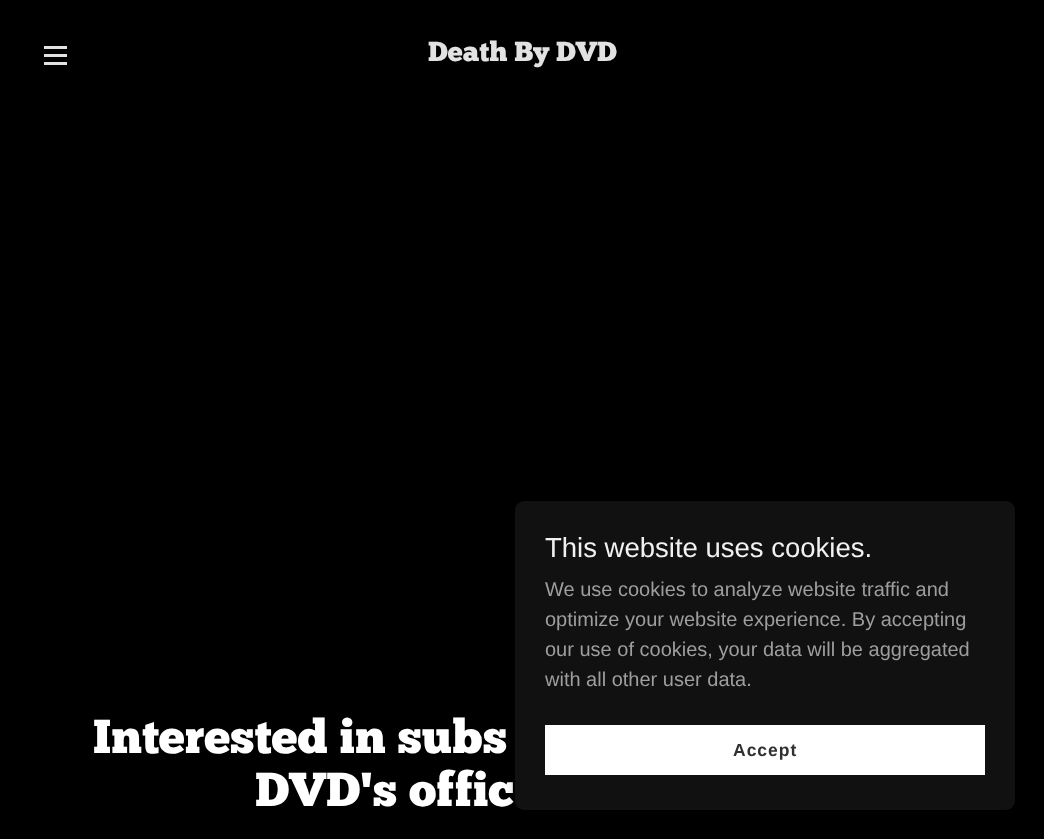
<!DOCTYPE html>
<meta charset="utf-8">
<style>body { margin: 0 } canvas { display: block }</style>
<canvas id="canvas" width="1044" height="839"></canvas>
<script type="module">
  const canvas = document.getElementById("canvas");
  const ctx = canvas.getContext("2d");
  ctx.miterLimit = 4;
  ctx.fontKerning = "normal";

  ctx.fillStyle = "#000000";
  ctx.fillRect(0, 0, 1044, 839);
  ctx.fillStyle = "#e2e2e2";
  ctx.fillRect(44, 46, 23, 3);
  ctx.fillRect(44, 54, 23, 3);
  ctx.fillRect(44, 62, 23, 3);
  ctx.font = "27.5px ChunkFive";
  ctx.fillText("Death By DVD", 428, 61);
  ctx.font = "47.5px ChunkFive";
  ctx.fillStyle = "#ffffff";
  ctx.fillText("Interested in subs", 93, 753);
  ctx.fillText("DVD's offic", 255, 806);
  ctx.fillStyle = "rgba(0, 0, 0, 0.3)";
  ctx.filter = "blur(4px)";
  ctx.beginPath();
  ctx.roundRect(515, 504, 500, 309, 9);
  ctx.fill();
  ctx.filter = "none";
  ctx.fillStyle = "#111111";
  ctx.beginPath();
  ctx.roundRect(515, 501, 500, 309, 9);
  ctx.fill();
  ctx.font = "27.5px Liberation Sans";
  ctx.fillStyle = "#f1f1f1";
  ctx.fillText("This website uses cookies.", 545, 557);
  ctx.font = "20px Liberation Sans";
  ctx.fillStyle = "#9e9e9e";
  ctx.fillText("We use cookies to analyze website traffic and", 545, 596);
  ctx.fillText("optimize your website experience. By accepting", 545, 626);
  ctx.fillText("our use of cookies, your data will be aggregated", 545, 656);
  ctx.fillText("with all other user data.", 545, 686);
  ctx.fillStyle = "#ffffff";
  ctx.fillRect(545, 725, 440, 50);
  ctx.letterSpacing = "1px";
  ctx.font = "bold 17.5px Liberation Sans";
  ctx.fillStyle = "#303030";
  ctx.fillText("Accept", 733, 756);
</script>
